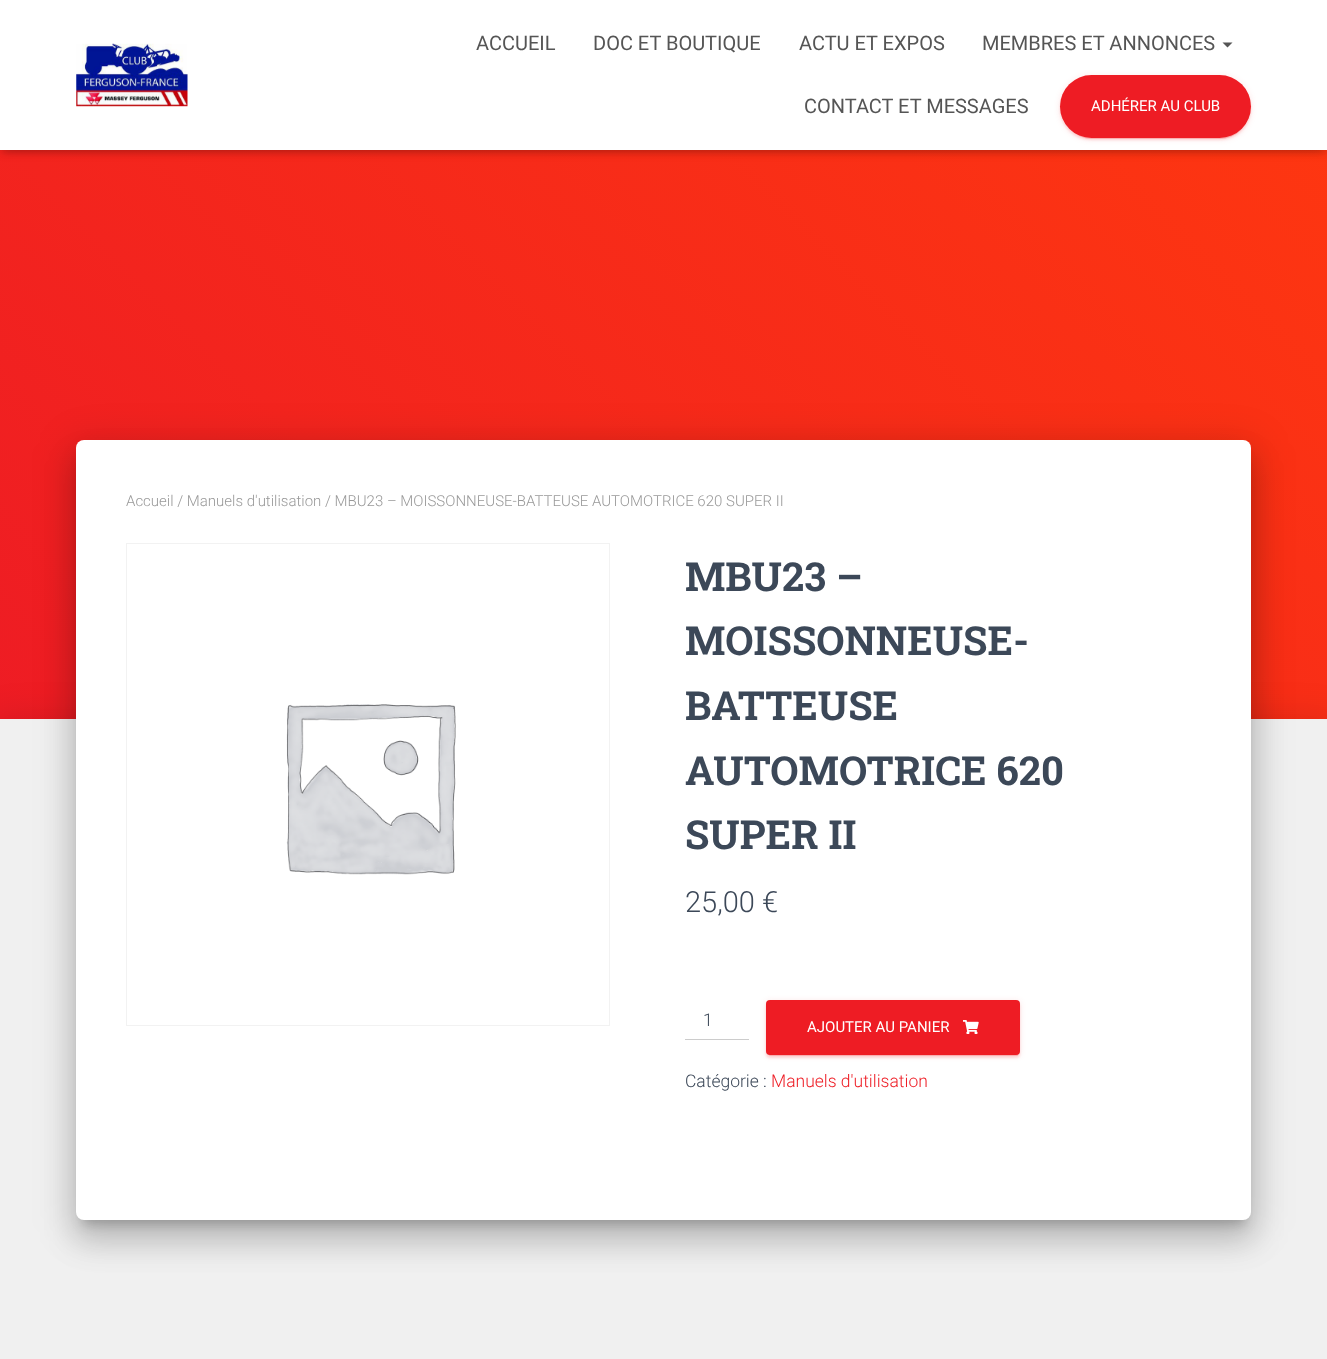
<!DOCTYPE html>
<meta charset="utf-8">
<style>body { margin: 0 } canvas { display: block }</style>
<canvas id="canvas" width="1327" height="1359"></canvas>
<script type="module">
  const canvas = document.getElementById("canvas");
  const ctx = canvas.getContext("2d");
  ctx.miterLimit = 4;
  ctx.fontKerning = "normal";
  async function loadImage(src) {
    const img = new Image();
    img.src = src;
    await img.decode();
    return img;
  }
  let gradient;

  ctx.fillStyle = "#ffffff";
  ctx.fillRect(0, 0, 1327, 1359);
  gradient = ctx.createLinearGradient(152, 871, 1175, -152);
  gradient.addColorStop(0, "#ee1c24");
  gradient.addColorStop(1, "#ff380f");
  ctx.fillStyle = gradient;
  ctx.fillRect(0, 150, 1327, 569);
  ctx.fillStyle = "rgba(0, 0, 0, 0.1)";
  ctx.filter = "blur(3px)";
  ctx.beginPath();
  ctx.rect(3, 8, 1322, 145);
  ctx.fill();
  ctx.filter = "none";
  ctx.fillStyle = "rgba(0, 0, 0, 0.12)";
  ctx.filter = "blur(6px)";
  ctx.beginPath();
  ctx.rect(0, 1, 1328, 150);
  ctx.fill();
  ctx.filter = "none";
  ctx.fillStyle = "rgba(0, 0, 0, 0.42)";
  ctx.filter = "blur(6px)";
  ctx.beginPath();
  ctx.rect(8, 9, 1312, 135);
  ctx.fill();
  ctx.filter = "none";
  ctx.fillStyle = "#ffffff";
  ctx.fillRect(0, 0, 1327, 150);
  ctx.drawImage(await loadImage("img1.png"), 76, 43, 112, 64);
  ctx.font = "20px Roboto";
  ctx.fillStyle = "#555555";
  ctx.fillText("ACCUEIL", 476, 50);
  ctx.fillText("DOC ET BOUTIQUE", 593, 50);
  ctx.fillText("ACTU ET EXPOS", 799, 50);
  ctx.fillText("MEMBRES ET ANNONCES", 982, 50);
  ctx.beginPath();
  ctx.moveTo(1222.5, 42.5);
  ctx.lineTo(1232.5, 42.5);
  ctx.lineTo(1227.5, 47.5);
  ctx.closePath();
  ctx.fill();
  ctx.fillText("CONTACT ET MESSAGES", 804, 113);
  ctx.fillStyle = "rgba(238, 28, 36, 0.12)";
  ctx.filter = "blur(3px)";
  ctx.beginPath();
  ctx.roundRect(1060, 76, 191, 63, 31.5);
  ctx.fill();
  ctx.filter = "none";
  ctx.fillStyle = "rgba(238, 28, 36, 0.2)";
  ctx.filter = "blur(0.5px)";
  ctx.beginPath();
  ctx.roundRect(1063, 81, 186, 58, 29);
  ctx.fill();
  ctx.filter = "none";
  ctx.fillStyle = "rgba(238, 28, 36, 0.14)";
  ctx.filter = "blur(1px)";
  ctx.beginPath();
  ctx.roundRect(1060, 78, 191, 62, 31);
  ctx.fill();
  ctx.filter = "none";
  ctx.fillStyle = "#ee1c24";
  ctx.beginPath();
  ctx.roundRect(1060, 75, 191, 63, 31.5);
  ctx.fill();
  ctx.font = "15px Roboto";
  ctx.fillStyle = "#ffffff";
  ctx.fillText("ADHÉRER AU CLUB", 1091, 111);
  ctx.fillStyle = "rgba(0, 0, 0, 0.12)";
  ctx.filter = "blur(19px)";
  ctx.beginPath();
  ctx.rect(-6, 720, 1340, 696);
  ctx.fill();
  ctx.filter = "none";
  ctx.fillStyle = "#f0f0f0";
  ctx.fillRect(0, 719, 1327, 640);
  ctx.fillStyle = "rgba(0, 0, 0, 0.2)";
  ctx.filter = "blur(6px)";
  ctx.beginPath();
  ctx.roundRect(83, 456, 1162, 768, 1);
  ctx.fill();
  ctx.filter = "none";
  ctx.fillStyle = "rgba(0, 0, 0, 0.12)";
  ctx.filter = "blur(19px)";
  ctx.beginPath();
  ctx.roundRect(70, 441, 1188, 793, 14);
  ctx.fill();
  ctx.filter = "none";
  ctx.fillStyle = "rgba(0, 0, 0, 0.14)";
  ctx.filter = "blur(15px)";
  ctx.beginPath();
  ctx.roundRect(74, 458, 1180, 785, 10);
  ctx.fill();
  ctx.filter = "none";
  ctx.fillStyle = "#ffffff";
  ctx.beginPath();
  ctx.roundRect(76, 440, 1175, 780, 8);
  ctx.fill();
  ctx.font = "300 15px Roboto";
  ctx.fillStyle = "#999999";
  ctx.fillText("Accueil / Manuels d'utilisation / MBU23 – MOISSONNEUSE-BATTEUSE AUTOMOTRICE 620 SUPER II", 126, 506);
  ctx.strokeStyle = "#f2f2f2";
  ctx.strokeRect(126.5, 543.5, 483, 482);
  ctx.drawImage(await loadImage("img2.png"), 286, 704, 170, 171);
  ctx.font = "bold 40px Roboto Slab";
  ctx.fillStyle = "#3c4858";
  ctx.fillText("MBU23 –", 685, 591);
  ctx.fillText("MOISSONNEUSE-", 685, 655);
  ctx.fillText("BATTEUSE", 685, 720);
  ctx.fillText("AUTOMOTRICE 620", 685, 785);
  ctx.fillText("SUPER II", 685, 849);
  ctx.font = "300 29px Roboto";
  ctx.fillText("25,00 €", 685, 912);
  ctx.fillStyle = "#cccccc";
  ctx.fillRect(685, 1039, 64, 1);
  ctx.font = "300 17.5px Roboto";
  ctx.fillStyle = "#3c4858";
  ctx.fillText("1", 703, 1026);
  ctx.fillStyle = "rgba(238, 28, 36, 0.12)";
  ctx.filter = "blur(3px)";
  ctx.beginPath();
  ctx.roundRect(766, 1001, 254, 55, 4);
  ctx.fill();
  ctx.filter = "none";
  ctx.fillStyle = "rgba(238, 28, 36, 0.2)";
  ctx.filter = "blur(0.5px)";
  ctx.beginPath();
  ctx.roundRect(769, 1006, 249, 50, 1);
  ctx.fill();
  ctx.filter = "none";
  ctx.fillStyle = "rgba(238, 28, 36, 0.14)";
  ctx.filter = "blur(1px)";
  ctx.beginPath();
  ctx.roundRect(766, 1003, 254, 55, 4);
  ctx.fill();
  ctx.filter = "none";
  ctx.fillStyle = "#ee1c24";
  ctx.beginPath();
  ctx.roundRect(766, 1000, 254, 55, 4);
  ctx.fill();
  ctx.font = "15px Roboto";
  ctx.fillStyle = "#ffffff";
  ctx.fillText("AJOUTER AU PANIER", 807, 1032);
  ctx.drawImage(await loadImage("img3.png"), 963, 1020, 16, 14);
  ctx.font = "300 17.5px Roboto";
  ctx.fillStyle = "#3c4858";
  ctx.fillText("Catégorie :", 685, 1087);
  ctx.fillStyle = "#ee1c24";
  ctx.fillText("Manuels d'utilisation", 771, 1087);
</script>
